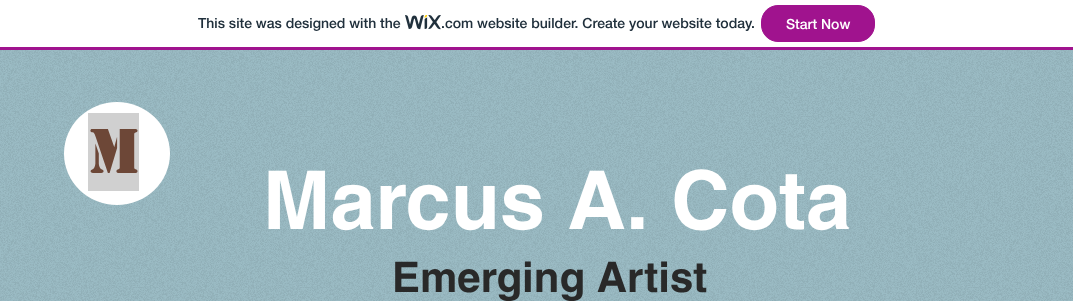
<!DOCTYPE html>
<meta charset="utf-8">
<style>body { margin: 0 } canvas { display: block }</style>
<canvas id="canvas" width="1073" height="301"></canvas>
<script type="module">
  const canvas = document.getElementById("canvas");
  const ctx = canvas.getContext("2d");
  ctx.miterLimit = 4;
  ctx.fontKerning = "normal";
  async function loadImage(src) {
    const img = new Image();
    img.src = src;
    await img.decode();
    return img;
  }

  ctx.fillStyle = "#ffffff";
  ctx.fillRect(0, 0, 1073, 301);
  ctx.fillStyle = "#a0138e";
  ctx.fillRect(0, 47, 1073, 3);
  ctx.font = "500 14px 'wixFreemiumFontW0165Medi'";
  ctx.fillStyle = "#20303c";
  ctx.fillText("This site was designed with the", 198, 28);
  ctx.drawImage(await loadImage("img1.png"), 405, 15, 36, 15);
  ctx.fillText(".com website builder. Create your website today.", 441, 28);
  ctx.fillStyle = "#a0138e";
  ctx.beginPath();
  ctx.roundRect(761.5, 5.5, 113, 36, 16.5);
  ctx.fill();
  ctx.strokeStyle = "#a0138e";
  ctx.stroke();
  ctx.fillStyle = "#ffffff";
  ctx.fillText("Start Now", 786, 29);
  ctx.fillStyle = "#9abbc4";
  ctx.fillRect(0, 50, 1073, 251);
  ctx.drawImage(await loadImage("img2.png"), 0, 50, 1073, 251);
  ctx.fillStyle = "#ffffff";
  ctx.beginPath();
  ctx.ellipse(117, 153.5, 53, 51.5, 0, 0, Math.PI * 2);
  ctx.fill();
  ctx.fillStyle = "#d0d0d0";
  ctx.fillRect(88, 113, 51, 78);
  ctx.font = "bold 59px 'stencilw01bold'";
  ctx.fillStyle = "#6d4737";
  ctx.fillText("M", 88, 173);
  ctx.font = "bold 81px helvetica";
  ctx.fillStyle = "#ffffff";
  ctx.fillText("Marcus A. Cota", 263, 229);
  ctx.font = "bold 42px helvetica";
  ctx.fillStyle = "#292929";
  ctx.fillText("Emerging Artist", 392, 292);
</script>
